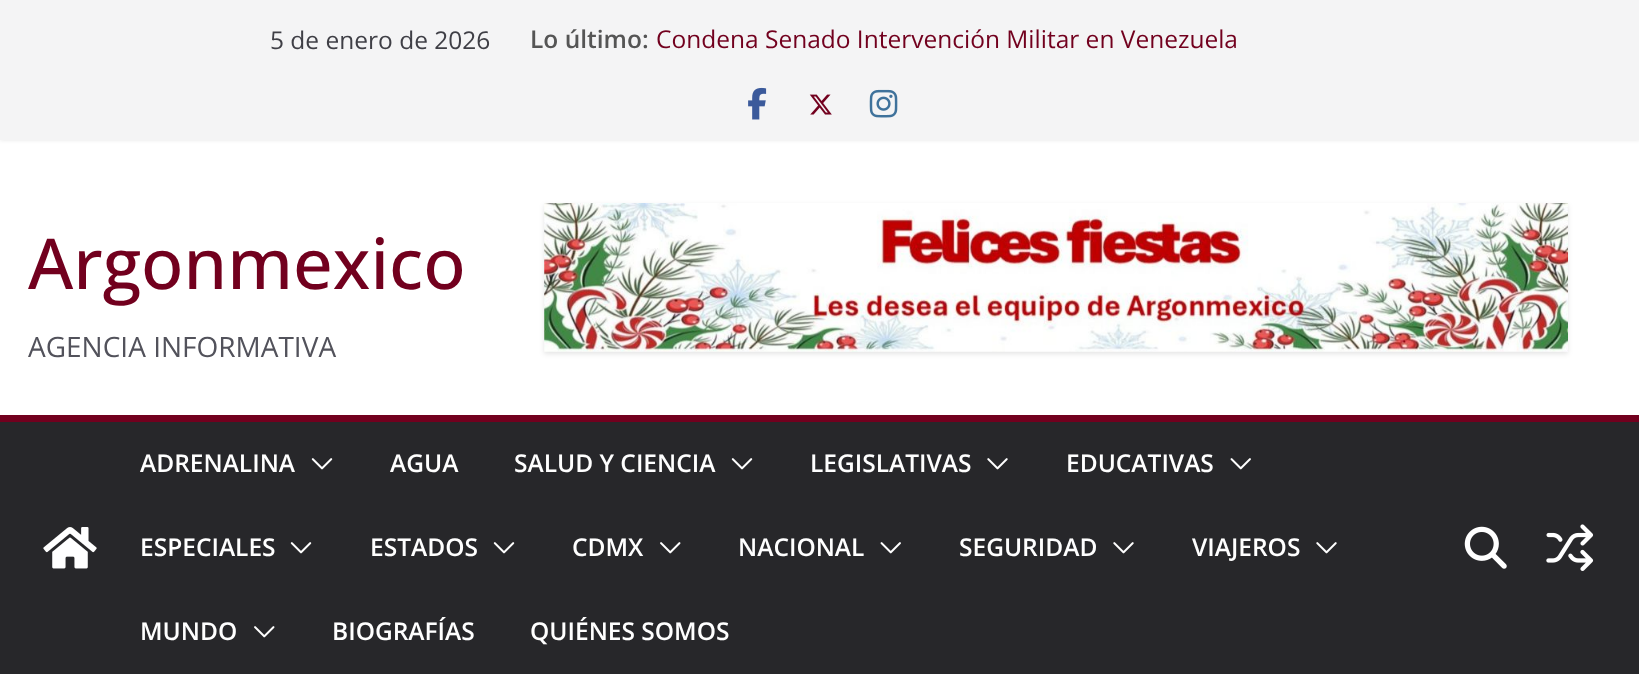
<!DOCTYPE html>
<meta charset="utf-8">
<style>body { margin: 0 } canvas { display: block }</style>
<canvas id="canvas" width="1639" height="681"></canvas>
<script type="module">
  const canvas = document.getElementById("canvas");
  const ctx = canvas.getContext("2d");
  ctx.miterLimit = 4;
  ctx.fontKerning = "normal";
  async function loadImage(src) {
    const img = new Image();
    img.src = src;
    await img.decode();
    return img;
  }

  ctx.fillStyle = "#ffffff";
  ctx.fillRect(0, 0, 1639, 681);
  ctx.fillStyle = "rgba(0, 0, 0, 0.1)";
  ctx.filter = "blur(2px)";
  ctx.beginPath();
  ctx.rect(0, 0, 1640, 140);
  ctx.fill();
  ctx.filter = "none";
  ctx.fillStyle = "#f4f4f5";
  ctx.fillRect(0, 0, 1639, 140);
  ctx.font = "24.5px Open Sans";
  ctx.fillStyle = "#3f3f46";
  ctx.fillText("5 de enero de 2026", 270, 49);
  ctx.font = "600 24.5px Open Sans";
  ctx.fillStyle = "#555555";
  ctx.fillText("Lo último:", 530, 48);
  ctx.font = "24.5px Open Sans";
  ctx.fillStyle = "#72001e";
  ctx.fillText("Condena Senado Intervención Militar en Venezuela", 656, 48);
  ctx.drawImage(await loadImage("img1.png"), 748, 87, 19, 33);
  ctx.drawImage(await loadImage("img2.png"), 809, 94, 23, 21);
  ctx.drawImage(await loadImage("img3.png"), 869, 89, 29, 29);
  ctx.font = "500 70px Open Sans";
  ctx.fillText("Argonmexico", 28, 289);
  ctx.font = "28px Open Sans";
  ctx.fillStyle = "#52525b";
  ctx.fillText("AGENCIA INFORMATIVA", 28, 357);
  ctx.fillStyle = "rgba(0, 0, 0, 0.1)";
  ctx.filter = "blur(2.5px)";
  ctx.beginPath();
  ctx.rect(544, 205, 1024, 149);
  ctx.fill();
  ctx.filter = "none";
  ctx.drawImage(await loadImage("img4.png"), 544, 203, 1024, 149);
  ctx.fillStyle = "#27272a";
  ctx.fillRect(0, 422, 1639, 252);
  ctx.fillStyle = "#72001e";
  ctx.fillRect(0, 415, 1639, 7);
  ctx.drawImage(await loadImage("img5.png"), 43, 527, 54, 42);
  ctx.font = "600 24.5px Open Sans";
  ctx.fillStyle = "#ffffff";
  ctx.fillText("ADRENALINA", 140, 472);
  ctx.drawImage(await loadImage("img6.png"), 311, 458, 22, 12);
  ctx.fillText("AGUA", 390, 472);
  ctx.fillText("SALUD Y CIENCIA", 514, 472);
  ctx.drawImage(await loadImage("img6.png"), 731, 458, 22, 12);
  ctx.fillText("LEGISLATIVAS", 810, 472);
  ctx.drawImage(await loadImage("img7.png"), 987, 458, 21, 12);
  ctx.fillText("EDUCATIVAS", 1066, 472);
  ctx.drawImage(await loadImage("img8.png"), 1230, 458, 21, 12);
  ctx.fillText("ESPECIALES", 140, 556);
  ctx.drawImage(await loadImage("img6.png"), 290, 542, 22, 12);
  ctx.fillText("ESTADOS", 370, 556);
  ctx.drawImage(await loadImage("img6.png"), 493, 542, 22, 12);
  ctx.fillText("CDMX", 572, 556);
  ctx.drawImage(await loadImage("img9.png"), 660, 542, 21, 12);
  ctx.fillText("NACIONAL", 738, 556);
  ctx.drawImage(await loadImage("img8.png"), 880, 542, 21, 12);
  ctx.fillText("SEGURIDAD", 959, 556);
  ctx.drawImage(await loadImage("img7.png"), 1113, 542, 21, 12);
  ctx.fillText("VIAJEROS", 1192, 556);
  ctx.drawImage(await loadImage("img7.png"), 1316, 542, 21, 12);
  ctx.fillText("MUNDO", 140, 640);
  ctx.drawImage(await loadImage("img9.png"), 254, 626, 21, 12);
  ctx.fillText("BIOGRAFÍAS", 332, 640);
  ctx.fillText("QUIÉNES SOMOS", 530, 640);
  ctx.drawImage(await loadImage("img10.png"), 1464, 526, 43, 43);
  ctx.drawImage(await loadImage("img11.png"), 1546, 524, 48, 47);
</script>
